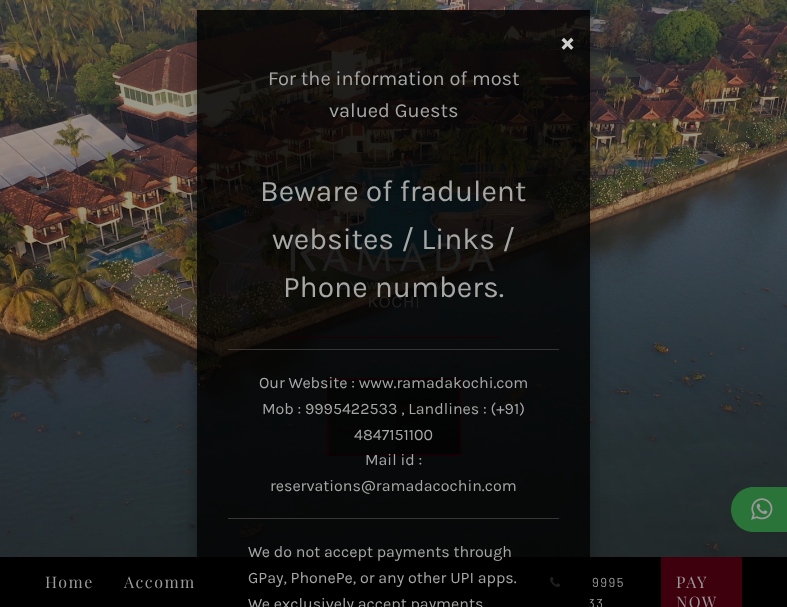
<!DOCTYPE html>
<meta charset="utf-8">
<style>body { margin: 0 } canvas { display: block }</style>
<canvas id="canvas" width="787" height="607"></canvas>
<script type="module">
  const canvas = document.getElementById("canvas");
  const ctx = canvas.getContext("2d");
  ctx.miterLimit = 4;
  ctx.fontKerning = "normal";
  async function loadImage(src) {
    const img = new Image();
    img.src = src;
    await img.decode();
    return img;
  }
  let gradient;

  ctx.fillStyle = "#ffffff";
  ctx.fillRect(0, 0, 787, 607);
  ctx.drawImage(await loadImage("img2.png"), 0, 0, 787, 557);
  ctx.fillStyle = "#7e0023";
  ctx.fillRect(286, 337, 215, 1);
  ctx.drawImage(await loadImage("img3.png"), 290, 234, 207, 74);
  ctx.fillStyle = "rgba(0, 0, 0, 0.61)";
  ctx.fillRect(329, 380, 130, 74);
  gradient = ctx.createLinearGradient(327, 379, 461, 379);
  gradient.addColorStop(0, "#7e0023");
  gradient.addColorStop(1, "#3f000d");
  ctx.fillStyle = gradient;
  ctx.fillRect(327, 378, 134, 2);
  gradient = ctx.createLinearGradient(460, 378, 460, 456);
  gradient.addColorStop(0, "#7e0023");
  gradient.addColorStop(1, "#3f000d");
  ctx.fillStyle = gradient;
  ctx.fillRect(459, 378, 2, 78);
  gradient = ctx.createLinearGradient(461, 455, 327, 455);
  gradient.addColorStop(0, "#7e0023");
  gradient.addColorStop(1, "#3f000d");
  ctx.fillStyle = gradient;
  ctx.fillRect(327, 454, 134, 2);
  gradient = ctx.createLinearGradient(328, 456, 328, 378);
  gradient.addColorStop(0, "#7e0023");
  gradient.addColorStop(1, "#3f000d");
  ctx.fillStyle = gradient;
  ctx.fillRect(327, 378, 2, 78);
  ctx.fillStyle = "rgba(153, 153, 153, 0.05)";
  ctx.fillRect(329, 380, 67, 74);
  ctx.fillStyle = "#000000";
  ctx.fillRect(0, 557, 787, 50);
  ctx.drawImage(await loadImage("img4.png"), 550, 576, 11, 11);
  ctx.save();
  ctx.beginPath();
  ctx.moveTo(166, 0);
  ctx.lineTo(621, 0);
  ctx.lineTo(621, 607);
  ctx.lineTo(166, 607);
  ctx.closePath();
  ctx.moveTo(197, 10);
  ctx.lineTo(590, 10);
  ctx.lineTo(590, 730);
  ctx.lineTo(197, 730);
  ctx.closePath();
  ctx.clip("evenodd");
  ctx.fillStyle = "rgba(0, 0, 0, 0.15)";
  ctx.filter = "blur(10px)";
  ctx.beginPath();
  ctx.rect(197, 16, 393, 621);
  ctx.fill();
  ctx.filter = "none";
  ctx.restore();
  ctx.save();
  ctx.beginPath();
  ctx.moveTo(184, 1);
  ctx.lineTo(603, 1);
  ctx.lineTo(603, 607);
  ctx.lineTo(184, 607);
  ctx.closePath();
  ctx.moveTo(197, 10);
  ctx.lineTo(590, 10);
  ctx.lineTo(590, 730);
  ctx.lineTo(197, 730);
  ctx.closePath();
  ctx.clip("evenodd");
  ctx.fillStyle = "rgba(0, 0, 0, 0.16)";
  ctx.filter = "blur(4px)";
  ctx.beginPath();
  ctx.rect(197, 14, 393, 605);
  ctx.fill();
  ctx.filter = "none";
  ctx.restore();
  ctx.letterSpacing = "1.5px";
  ctx.font = "13px Barlow";
  ctx.fillStyle = "#999999";
  ctx.fillText("33", 588, 608);
  ctx.fillStyle = "rgba(0, 0, 0, 0.8)";
  ctx.fillRect(197, 10, 393, 597);
  ctx.letterSpacing = "0px";
  ctx.font = "bold 28px Karla";
  ctx.fillStyle = "#cfcfce";
  ctx.fillText("×", 560, 51);
  ctx.font = "20px Karla";
  ctx.fillStyle = "#a7a7a6";
  ctx.fillText("For the information of most", 268, 85);
  ctx.fillText("valued Guests", 329, 117);
  ctx.font = "30px Karla";
  ctx.fillText("Beware of fradulent", 260, 201);
  ctx.fillText("websites / Links /", 272, 249);
  ctx.fillText("Phone numbers.", 283, 297);
  ctx.fillStyle = "rgba(68, 65, 65, 0.8)";
  ctx.fillRect(228, 349, 331, 1);
  ctx.fillStyle = "#383636";
  ctx.fillRect(228, 518, 331, 1);
  ctx.font = "16px Karla";
  ctx.fillStyle = "#a7a7a6";
  ctx.fillText("Our Website : www.ramadakochi.com", 259, 388);
  ctx.fillText("Mob : 9995422533 , Landlines : (+91)", 262, 414);
  ctx.fillText("4847151100", 354, 440);
  ctx.fillText("Mail id :", 365, 465);
  ctx.fillText("reservations@ramadacochin.com", 270, 491);
  ctx.fillText("We do not accept payments through", 248, 557);
  ctx.fillText("GPay, PhonePe, or any other UPI apps.", 248, 583);
  ctx.fillText("We exclusively accept payments", 248, 609);
  ctx.fillStyle = "#2b7439";
  ctx.beginPath();
  ctx.moveTo(753.5, 487);
  ctx.lineTo(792, 487);
  ctx.lineTo(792, 532);
  ctx.lineTo(753.5, 532);
  ctx.bezierCurveTo(741, 532, 731, 522, 731, 509.5);
  ctx.bezierCurveTo(731, 497, 741, 487, 753.5, 487);
  ctx.closePath();
  ctx.fill();
  ctx.drawImage(await loadImage("img1.png"), 751, 498, 22, 22);
  ctx.letterSpacing = "1.5px";
  ctx.font = "16px Playfair Display";
  ctx.fillStyle = "#999999";
  ctx.fillText("Home", 45, 588);
  ctx.fillText("Accomm", 124, 588);
  ctx.font = "13px Barlow";
  ctx.fillText("9995", 592, 587);
  ctx.fillStyle = "#3f000d";
  ctx.fillRect(661, 557, 81, 50);
  ctx.font = "16px Playfair Display";
  ctx.fillStyle = "#999999";
  ctx.fillText("PAY", 676, 588);
  ctx.fillText("NOW", 676, 608);
</script>
